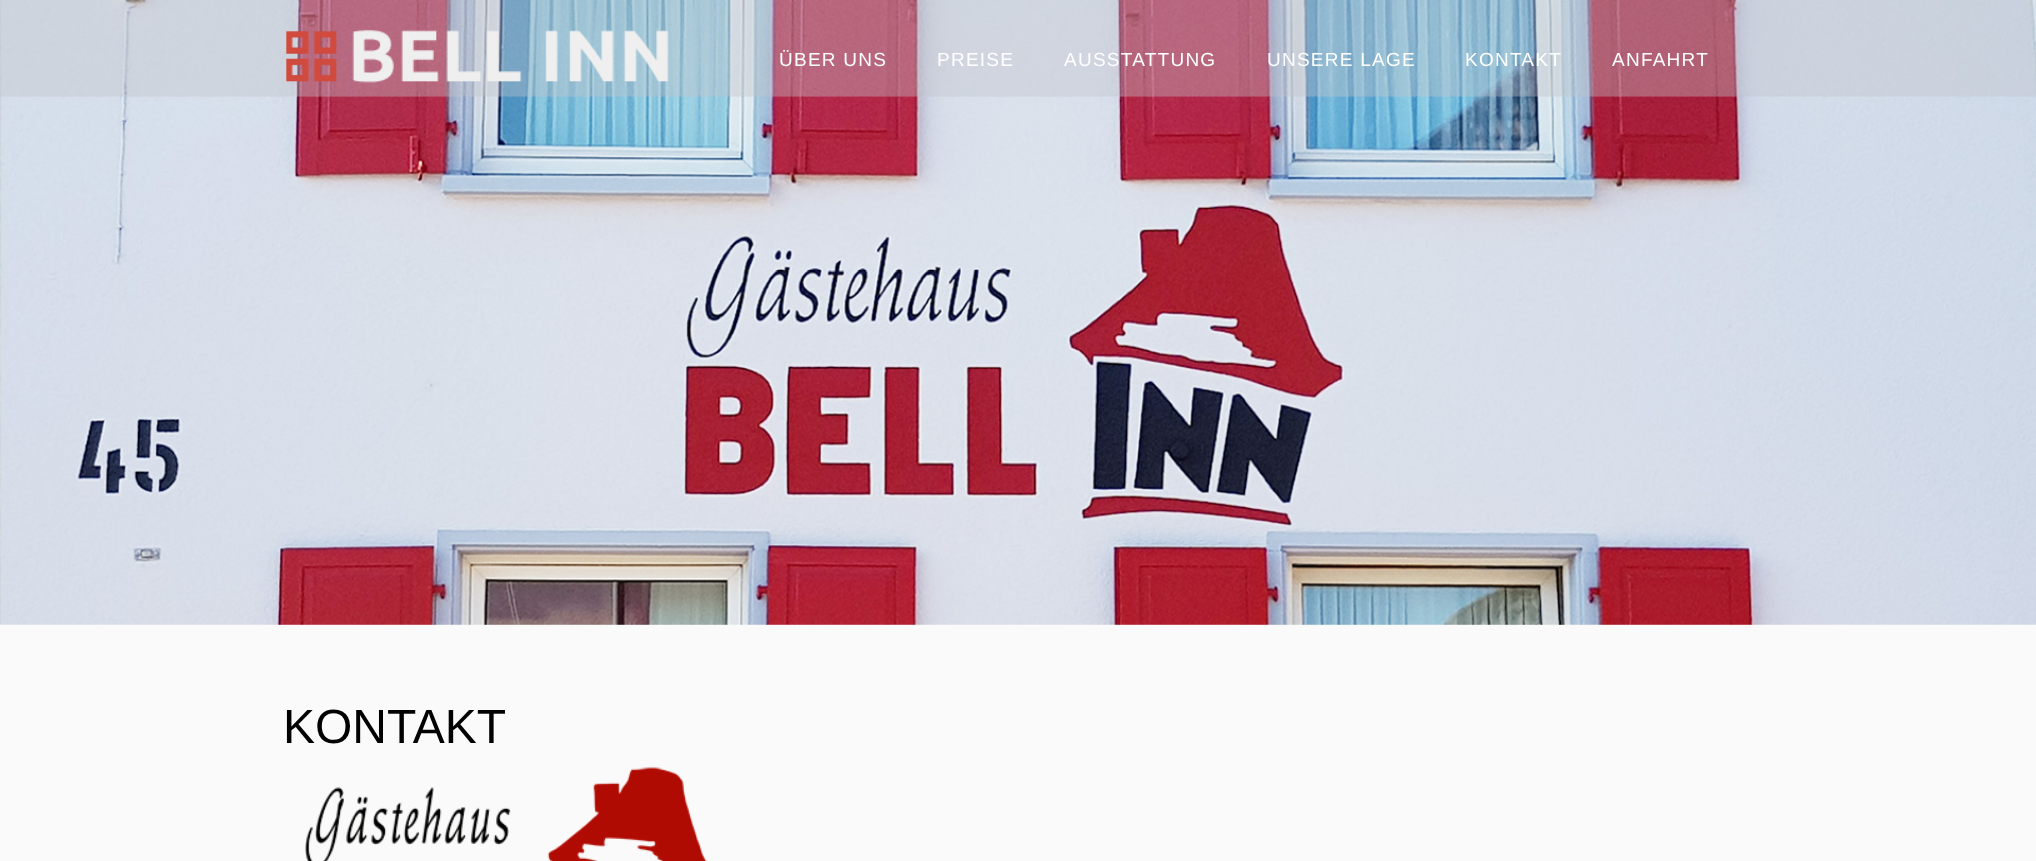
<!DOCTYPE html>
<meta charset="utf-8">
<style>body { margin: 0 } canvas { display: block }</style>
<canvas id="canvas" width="2036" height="861"></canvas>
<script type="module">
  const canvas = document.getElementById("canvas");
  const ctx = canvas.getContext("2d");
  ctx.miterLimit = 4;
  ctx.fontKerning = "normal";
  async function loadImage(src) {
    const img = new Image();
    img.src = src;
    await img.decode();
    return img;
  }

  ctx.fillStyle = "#ffffff";
  ctx.fillRect(0, 0, 2036, 861);
  ctx.drawImage(await loadImage("img1.png"), 0, 0, 2036, 625);
  ctx.drawImage(await loadImage("img2.png"), 286, 29, 383, 54);
  ctx.letterSpacing = "1.25px";
  ctx.font = "19px Liberation Sans";
  ctx.fillText("ÜBER UNS", 779, 66);
  ctx.fillText("PREISE", 937, 66);
  ctx.fillText("AUSSTATTUNG", 1064, 66);
  ctx.fillText("UNSERE LAGE", 1267, 66);
  ctx.fillText("KONTAKT", 1465, 66);
  ctx.fillText("ANFAHRT", 1612, 66);
  ctx.fillStyle = "#fafafa";
  ctx.fillRect(0, 625, 2036, 236);
  ctx.letterSpacing = "0px";
  ctx.font = "48px Liberation Sans";
  ctx.fillStyle = "#000000";
  ctx.fillText("KONTAKT", 283, 743);
  ctx.drawImage(await loadImage("img3.png"), 305, 767, 402, 94);
</script>
